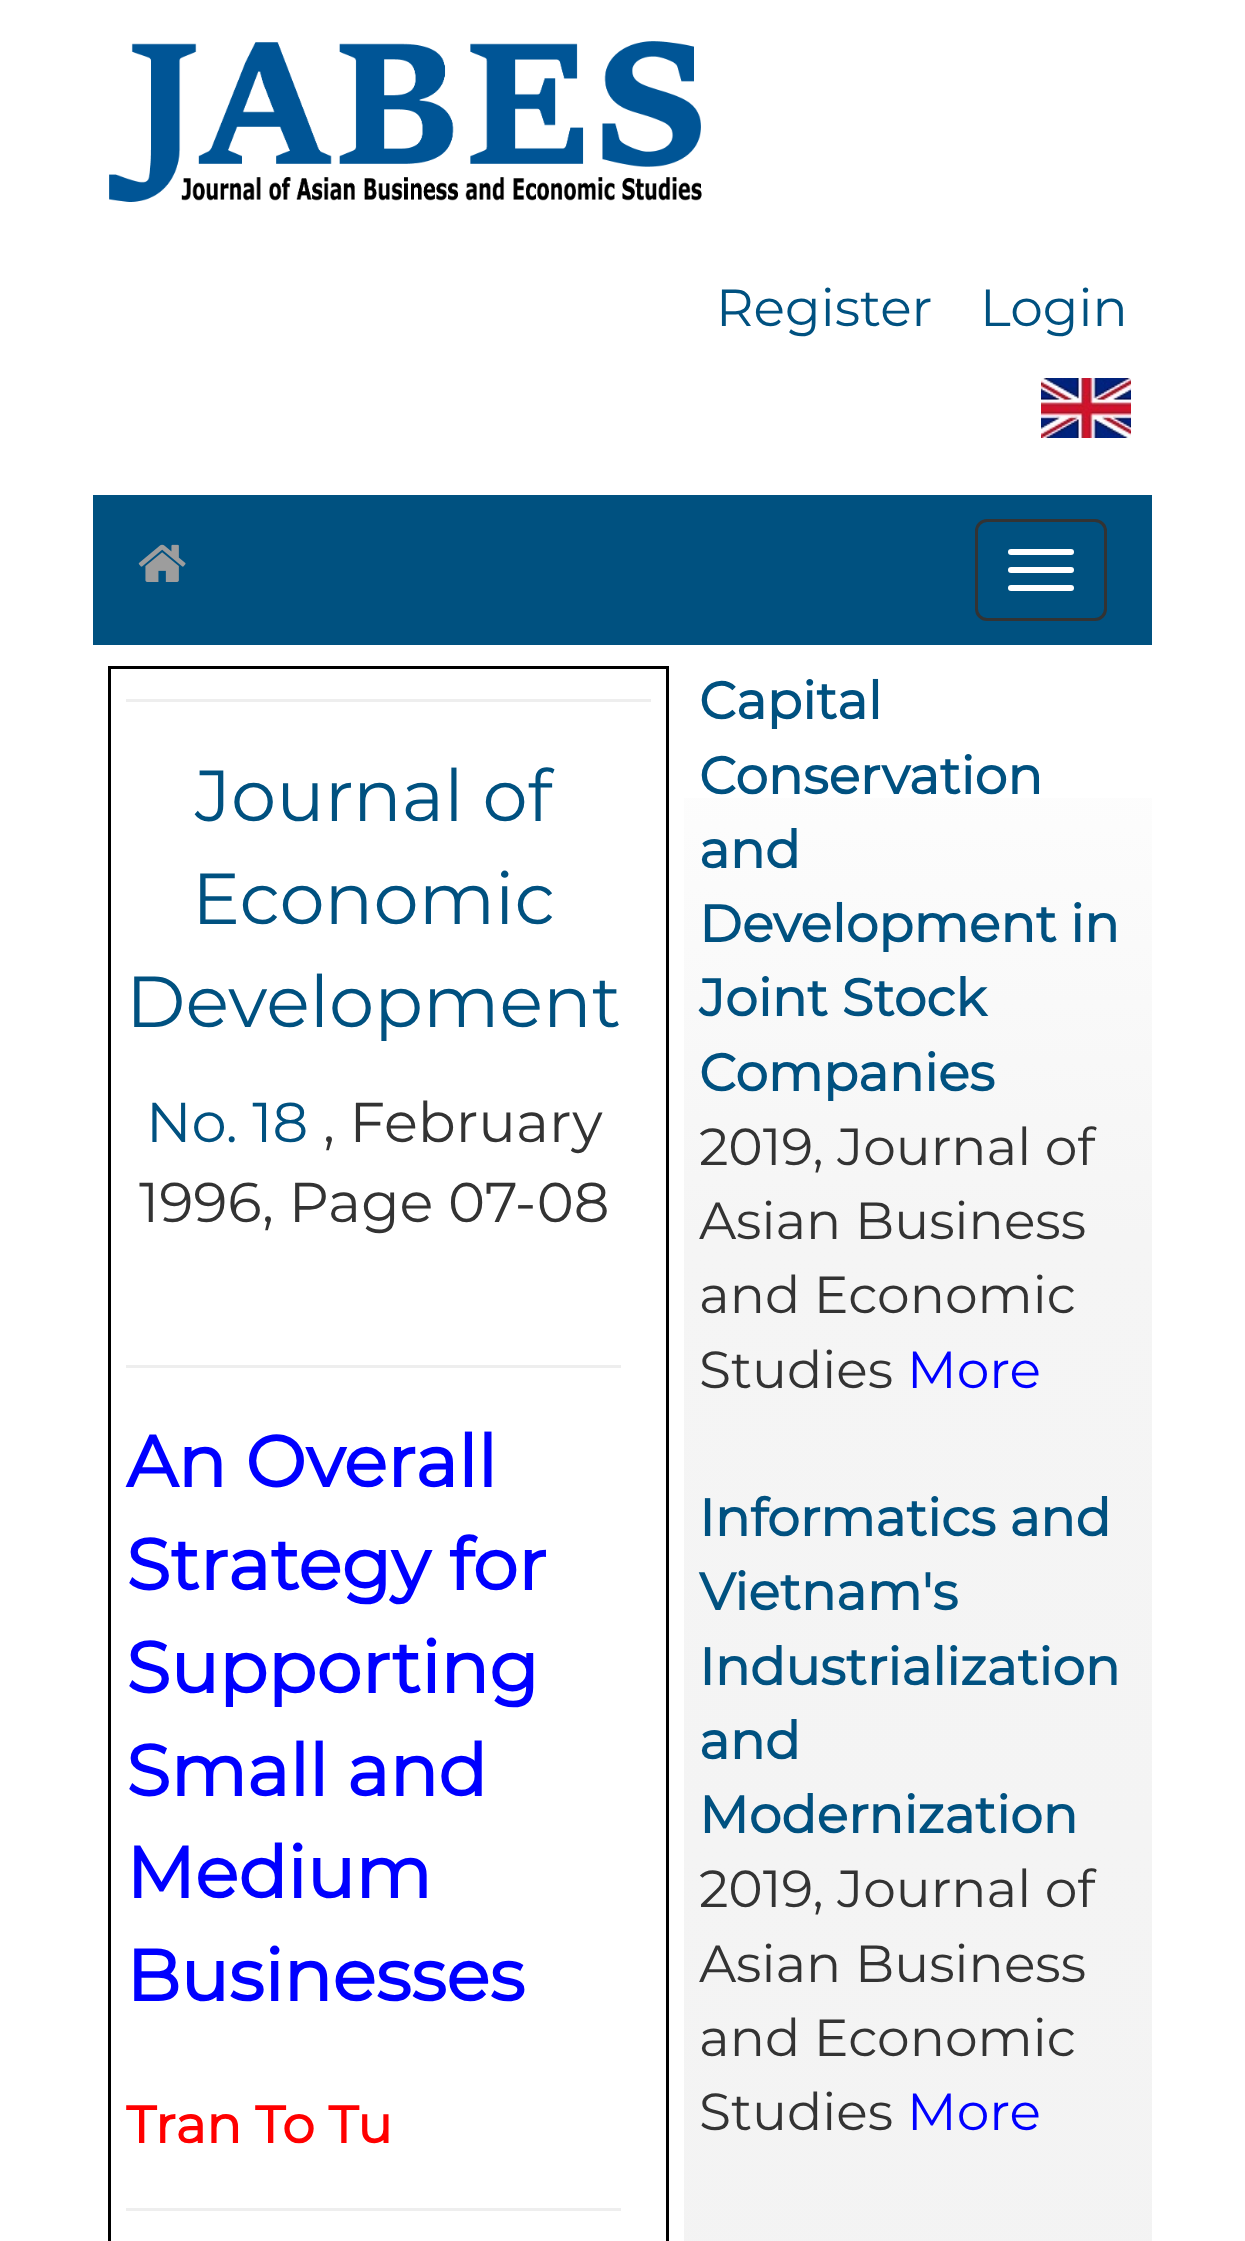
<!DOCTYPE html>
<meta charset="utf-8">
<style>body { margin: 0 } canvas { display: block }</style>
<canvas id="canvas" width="1245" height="2241"></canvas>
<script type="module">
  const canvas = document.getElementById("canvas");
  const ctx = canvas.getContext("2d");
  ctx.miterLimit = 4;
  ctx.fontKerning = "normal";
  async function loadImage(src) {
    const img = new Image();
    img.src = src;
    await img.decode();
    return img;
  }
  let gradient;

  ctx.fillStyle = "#ffffff";
  ctx.fillRect(0, 0, 1245, 2241);
  ctx.drawImage(await loadImage("img1.png"), 109, 41, 593, 161);
  ctx.font = "52px Montserrat";
  ctx.fillStyle = "#005180";
  ctx.fillText("Register", 716, 326);
  ctx.fillText("Login", 980, 326);
  ctx.drawImage(await loadImage("img2.png"), 1041, 378, 90, 60);
  ctx.fillRect(93, 495, 1059, 150);
  ctx.drawImage(await loadImage("img3.png"), 138, 544, 48, 38);
  ctx.beginPath();
  ctx.roundRect(976.5, 520.5, 129, 99, 10.5);
  ctx.strokeStyle = "#333333";
  ctx.lineWidth = 3;
  ctx.stroke();
  ctx.fillStyle = "#ffffff";
  ctx.beginPath();
  ctx.roundRect(1008, 549, 66, 6, 3);
  ctx.fill();
  ctx.beginPath();
  ctx.roundRect(1008, 567, 66, 6, 3);
  ctx.fill();
  ctx.beginPath();
  ctx.roundRect(1008, 585, 66, 6, 3);
  ctx.fill();
  ctx.strokeStyle = "#000000";
  ctx.strokeRect(109.5, 667.5, 558, 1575);
  ctx.fillStyle = "#eeeeee";
  ctx.fillRect(126, 699, 525, 3);
  ctx.font = "72px Montserrat";
  ctx.fillStyle = "#005180";
  ctx.fillText("Journal of", 195, 821);
  ctx.fillText("Economic", 192, 924);
  ctx.fillText("Development", 126, 1027);
  ctx.font = "56px Montserrat";
  ctx.fillText("No. 18", 146, 1142);
  ctx.fillStyle = "#333333";
  ctx.fillText(", February", 323, 1142);
  ctx.fillText("1996, Page 07-08", 139, 1222);
  ctx.fillStyle = "#eeeeee";
  ctx.fillRect(126, 1365, 495, 3);
  ctx.font = "bold 72px Montserrat";
  ctx.fillStyle = "#0000ff";
  ctx.fillText("An Overall", 126, 1487);
  ctx.fillText("Strategy for", 126, 1590);
  ctx.fillText("Supporting", 126, 1693);
  ctx.fillText("Small and", 126, 1796);
  ctx.fillText("Medium", 126, 1898);
  ctx.fillText("Businesses", 126, 2001);
  ctx.font = "bold 52px Montserrat";
  ctx.fillStyle = "#ff0000";
  ctx.fillText("Tran To Tu", 126, 2143);
  ctx.fillStyle = "#eeeeee";
  ctx.fillRect(126, 2208, 495, 3);
  gradient = ctx.createLinearGradient(918, 651, 918, 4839);
  gradient.addColorStop(0, "#ffffff");
  gradient.addColorStop(0.14, "#f5f5f5");
  gradient.addColorStop(1, "#efefef");
  ctx.fillStyle = gradient;
  ctx.fillRect(684, 798, 468, 1443);
  ctx.fillStyle = "#005180";
  ctx.fillText("Capital", 699, 719);
  ctx.fillText("Conservation", 699, 794);
  ctx.fillText("and", 699, 868);
  ctx.fillText("Development in", 699, 942);
  ctx.fillText("Joint Stock", 699, 1016);
  ctx.fillText("Companies", 699, 1091);
  ctx.font = "52px Montserrat";
  ctx.fillStyle = "#333333";
  ctx.fillText("2019, Journal of", 699, 1165);
  ctx.fillText("Asian Business", 699, 1239);
  ctx.fillText("and Economic", 699, 1313);
  ctx.fillText("Studies", 699, 1388);
  ctx.fillStyle = "#0000ff";
  ctx.fillText("More", 907, 1388);
  ctx.font = "bold 52px Montserrat";
  ctx.fillStyle = "#005180";
  ctx.fillText("Informatics and", 699, 1536);
  ctx.fillText("Vietnam's", 699, 1610);
  ctx.fillText("Industrialization", 699, 1685);
  ctx.fillText("and", 699, 1759);
  ctx.fillText("Modernization", 699, 1833);
  ctx.font = "52px Montserrat";
  ctx.fillStyle = "#333333";
  ctx.fillText("2019, Journal of", 699, 1907);
  ctx.fillText("Asian Business", 699, 1982);
  ctx.fillText("and Economic", 699, 2056);
  ctx.fillText("Studies", 699, 2130);
  ctx.fillStyle = "#0000ff";
  ctx.fillText("More", 907, 2130);
</script>
